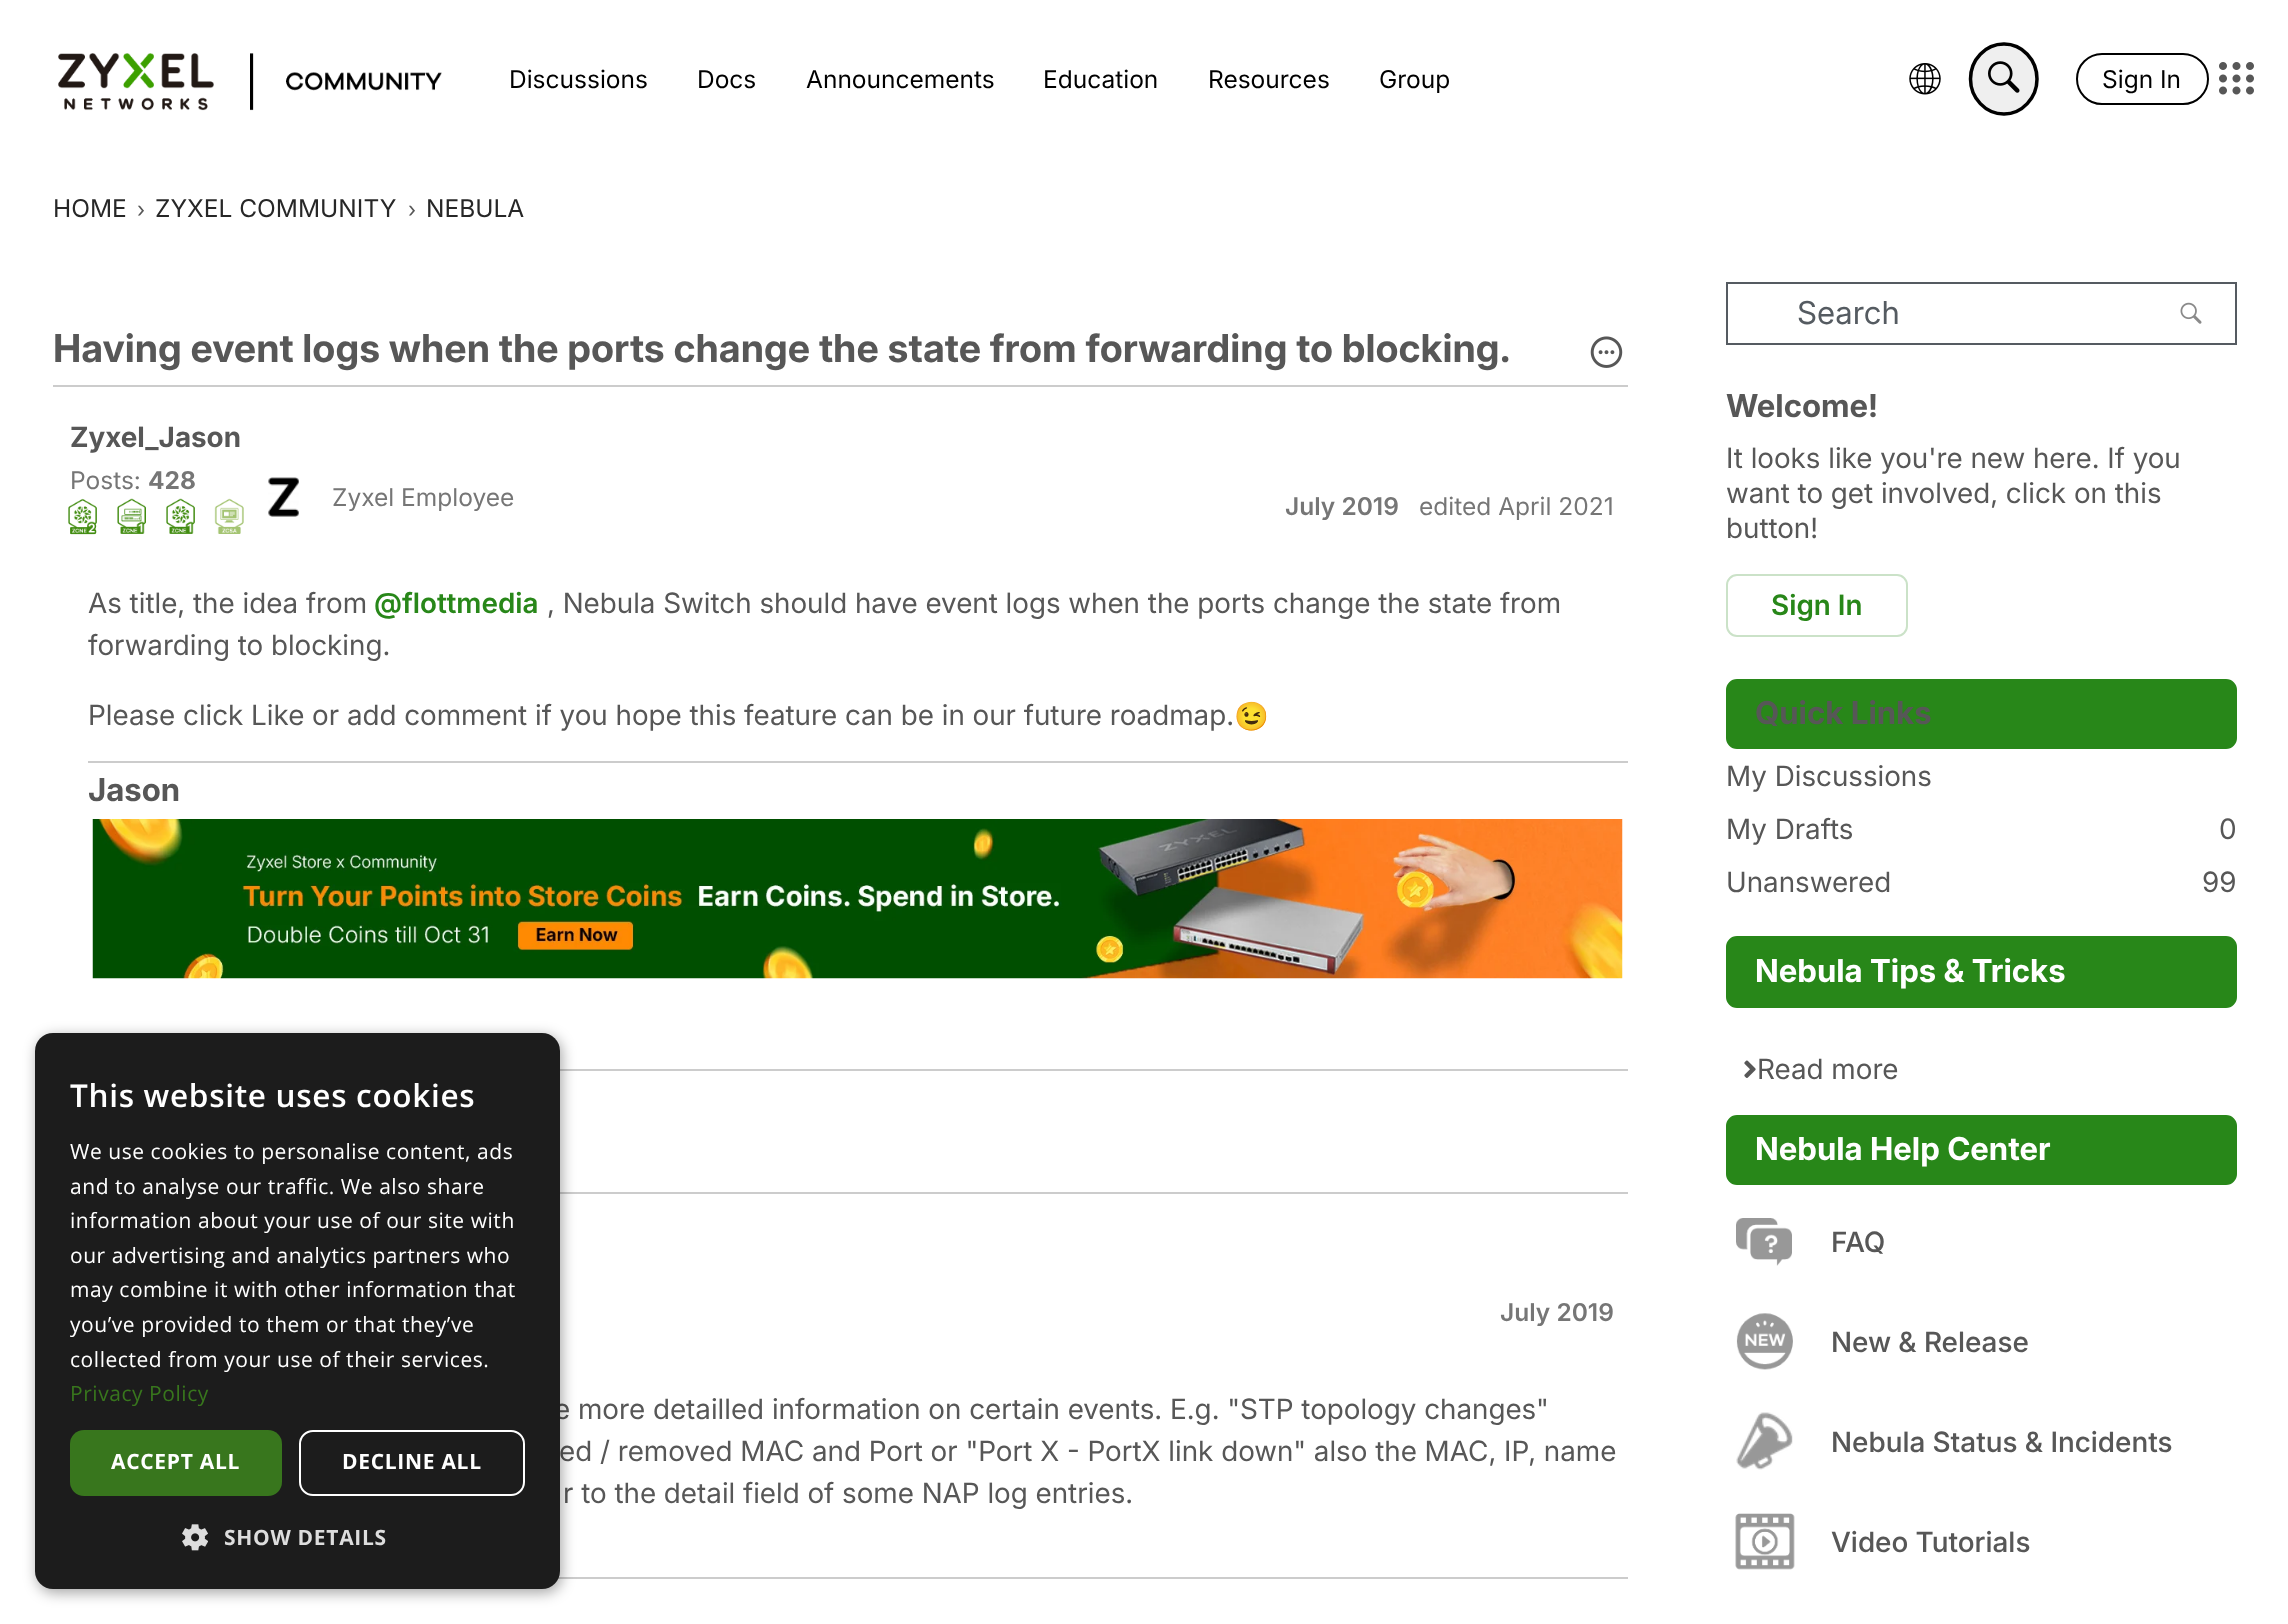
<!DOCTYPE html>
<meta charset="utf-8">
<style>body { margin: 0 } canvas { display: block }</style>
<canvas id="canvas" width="2288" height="1624"></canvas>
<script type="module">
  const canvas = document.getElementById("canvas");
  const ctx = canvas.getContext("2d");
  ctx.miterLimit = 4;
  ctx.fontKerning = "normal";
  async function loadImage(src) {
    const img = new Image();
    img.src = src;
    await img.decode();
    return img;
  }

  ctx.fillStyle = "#ffffff";
  ctx.fillRect(0, 0, 2288, 1624);
  ctx.drawImage(await loadImage("img1.png"), 58, 53, 384, 58);
  ctx.font = "24.5px Inter";
  ctx.fillStyle = "#000000";
  ctx.fillText("Discussions", 509, 88);
  ctx.fillText("Docs", 697, 88);
  ctx.fillText("Announcements", 806, 88);
  ctx.fillText("Education", 1043, 88);
  ctx.fillText("Resources", 1208, 88);
  ctx.fillText("Group", 1379, 88);
  ctx.drawImage(await loadImage("img2.png"), 1909, 63, 32, 32);
  ctx.fillStyle = "#efefef";
  ctx.beginPath();
  ctx.ellipse(2004, 79, 35, 37, 0, 0, Math.PI * 2);
  ctx.fill();
  ctx.beginPath();
  ctx.moveTo(2004, 44);
  ctx.bezierCurveTo(2022, 44, 2037, 59.5, 2037, 79);
  ctx.bezierCurveTo(2037, 98, 2022, 114, 2004, 114);
  ctx.bezierCurveTo(1985.5, 114, 1970.5, 98, 1970.5, 79);
  ctx.bezierCurveTo(1970.5, 59.5, 1985.5, 44, 2004, 44);
  ctx.closePath();
  ctx.strokeStyle = "#000000";
  ctx.lineWidth = 3.5;
  ctx.stroke();
  ctx.drawImage(await loadImage("img3.png"), 1988, 61, 32, 32);
  ctx.beginPath();
  ctx.roundRect(2077, 54, 131, 50, 25);
  ctx.lineWidth = 2;
  ctx.stroke();
  ctx.fillStyle = "#000000";
  ctx.fillText("Sign In", 2102, 88);
  ctx.drawImage(await loadImage("img4.png"), 2219, 62, 35, 33);
  ctx.fillStyle = "#272727";
  ctx.fillText("HOME", 53, 217);
  ctx.font = "21px Inter";
  ctx.fillStyle = "#575757";
  ctx.fillText("›", 137, 217);
  ctx.font = "24.5px Inter";
  ctx.fillStyle = "#272727";
  ctx.fillText("ZYXEL COMMUNITY", 155, 217);
  ctx.font = "21px Inter";
  ctx.fillStyle = "#575757";
  ctx.fillText("›", 408, 217);
  ctx.font = "24.5px Inter";
  ctx.fillStyle = "#272727";
  ctx.fillText("NEBULA", 426, 217);
  ctx.font = "bold 38.5px Inter";
  ctx.fillStyle = "#575757";
  ctx.fillText("Having event logs when the ports change the state from forwarding to blocking.", 53, 362);
  ctx.drawImage(await loadImage("img5.png"), 1590, 336, 33, 32);
  ctx.fillStyle = "#cccccc";
  ctx.fillRect(53, 385, 1575, 2);
  ctx.font = "bold 28px 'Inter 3'";
  ctx.fillStyle = "#575757";
  ctx.fillText("Zyxel_Jason", 70, 447);
  ctx.font = "24.5px Inter";
  ctx.fillStyle = "#767676";
  ctx.fillText("Posts:", 70, 489);
  ctx.font = "bold 24.5px 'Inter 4'";
  ctx.fillText("428", 148, 489);
  ctx.drawImage(await loadImage("img6.png"), 68, 498, 29, 37);
  ctx.drawImage(await loadImage("img7.png"), 117, 498, 29, 36);
  ctx.drawImage(await loadImage("img8.png"), 166, 498, 29, 36);
  ctx.drawImage(await loadImage("img9.png"), 214, 498, 30, 36);
  ctx.drawImage(await loadImage("img10.png"), 268, 477, 31, 40);
  ctx.font = "24.5px Inter";
  ctx.fillText("Zyxel Employee", 332, 506);
  ctx.font = "600 24.5px Inter";
  ctx.fillText("July 2019", 1285, 515);
  ctx.font = "24.5px Inter";
  ctx.fillText("edited April 2021", 1419, 515);
  ctx.font = "28px 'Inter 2'";
  ctx.fillStyle = "#575757";
  ctx.fillText("As title, the idea from", 88, 613);
  ctx.font = "600 28px 'Inter 2'";
  ctx.fillStyle = "#288719";
  ctx.fillText("@flottmedia", 374, 613);
  ctx.font = "28px 'Inter 2'";
  ctx.fillStyle = "#575757";
  ctx.fillText(", Nebula Switch should have event logs when the ports change the state from", 547, 613);
  ctx.fillText("forwarding to blocking.", 88, 655);
  ctx.fillText("Please click Like or add comment if you hope this feature can be in our future roadmap.", 88, 725);
  ctx.font = "28px Noto Color Emoji";
  ctx.fillText("😉", 1234, 726);
  ctx.fillStyle = "#cccccc";
  ctx.fillRect(88, 761, 1540, 2);
  ctx.font = "bold 31.5px 'Inter 2'";
  ctx.fillStyle = "#575757";
  ctx.fillText("Jason", 88, 801);
  ctx.drawImage(await loadImage("img11.png"), 92, 819, 1531, 160);
  ctx.fillStyle = "#cccccc";
  ctx.fillRect(560, 1069, 1068, 2);
  ctx.fillRect(560, 1192, 1068, 2);
  ctx.font = "600 24.5px Inter";
  ctx.fillStyle = "#767676";
  ctx.fillText("July 2019", 1500, 1321);
  ctx.font = "28px 'Inter 2'";
  ctx.fillStyle = "#575757";
  ctx.fillText("e more detailled information on certain events. E.g. \"STP topology changes\"", 554, 1419);
  ctx.fillText("ed / removed MAC and Port or \"Port X - PortX link down\" also the MAC, IP, name", 559, 1461);
  ctx.fillText("r to the detail field of some NAP log entries.", 563, 1503);
  ctx.fillStyle = "#cccccc";
  ctx.fillRect(558, 1577, 1070, 2);
  ctx.strokeStyle = "#555b61";
  ctx.strokeRect(1727, 283, 509, 61);
  ctx.font = "31.5px 'Inter 3'";
  ctx.fillStyle = "#555b61";
  ctx.fillText("Search", 1797, 324);
  ctx.drawImage(await loadImage("img12.png"), 2180, 302, 22, 22);
  ctx.font = "bold 31.5px 'Inter 2'";
  ctx.fillStyle = "#575757";
  ctx.fillText("Welcome!", 1726, 417);
  ctx.font = "28px 'Inter 2'";
  ctx.fillText("It looks like you're new here. If you", 1726, 468);
  ctx.fillText("want to get involved, click on this", 1726, 503);
  ctx.fillText("button!", 1726, 538);
  ctx.beginPath();
  ctx.roundRect(1727, 575, 180, 61, 10);
  ctx.strokeStyle = "#cbe2c8";
  ctx.stroke();
  ctx.font = "600 28px 'Inter 2'";
  ctx.fillStyle = "#288719";
  ctx.fillText("Sign In", 1771, 615);
  ctx.beginPath();
  ctx.roundRect(1727, 680, 509, 68, 10);
  ctx.fill();
  ctx.strokeStyle = "#288719";
  ctx.stroke();
  ctx.font = "bold 31.5px 'Inter 2'";
  ctx.fillStyle = "#575757";
  ctx.fillText("Quick Links", 1755, 724);
  ctx.font = "28px 'Inter 2'";
  ctx.fillText("My Discussions", 1726, 786);
  ctx.fillText("My Drafts", 1726, 839);
  ctx.fillText("0", 2219, 839);
  ctx.fillText("Unanswered", 1726, 892);
  ctx.fillText("99", 2202, 892);
  ctx.fillStyle = "#288719";
  ctx.beginPath();
  ctx.roundRect(1727, 937, 509, 70, 10);
  ctx.fill();
  ctx.stroke();
  ctx.font = "bold 31.5px 'Inter 2'";
  ctx.fillStyle = "#ffffff";
  ctx.fillText("Nebula Tips & Tricks", 1755, 982);
  ctx.drawImage(await loadImage("img13.png"), 1744, 1060, 12, 18);
  ctx.font = "28px 'Inter 2'";
  ctx.fillStyle = "#575757";
  ctx.fillText("Read more", 1757, 1079);
  ctx.fillStyle = "#288719";
  ctx.beginPath();
  ctx.roundRect(1727, 1116, 509, 68, 10);
  ctx.fill();
  ctx.stroke();
  ctx.font = "bold 31.5px 'Inter 2'";
  ctx.fillStyle = "#ffffff";
  ctx.fillText("Nebula Help Center", 1755, 1160);
  ctx.drawImage(await loadImage("img14.png"), 1736, 1218, 56, 48);
  ctx.font = "500 28px Inter";
  ctx.fillStyle = "#575757";
  ctx.fillText("FAQ", 1831, 1252);
  ctx.drawImage(await loadImage("img15.png"), 1736, 1313, 57, 57);
  ctx.font = "500 28px 'Inter 2'";
  ctx.fillText("New & Release", 1831, 1352);
  ctx.drawImage(await loadImage("img16.png"), 1736, 1412, 57, 58);
  ctx.fillText("Nebula Status & Incidents", 1831, 1452);
  ctx.drawImage(await loadImage("img17.png"), 1735, 1513, 60, 57);
  ctx.fillText("Video Tutorials", 1831, 1552);
  ctx.fillStyle = "rgba(0, 0, 0, 0.35)";
  ctx.filter = "blur(7px)";
  ctx.beginPath();
  ctx.roundRect(37, 1036, 525, 557, 18);
  ctx.fill();
  ctx.filter = "none";
  ctx.fillStyle = "#1c1c1c";
  ctx.beginPath();
  ctx.roundRect(35, 1033, 525, 556, 18);
  ctx.fill();
  ctx.letterSpacing = "0.7px";
  ctx.font = "600 31.5px Open Sans";
  ctx.fillStyle = "#ffffff";
  ctx.fillText("This website uses cookies", 70, 1107);
  ctx.letterSpacing = "0.55px";
  ctx.font = "21px Open Sans";
  ctx.fillText("We use cookies to personalise content, ads", 70, 1159);
  ctx.fillText("and to analyse our traffic. We also share", 70, 1194);
  ctx.fillText("information about your use of our site with", 70, 1228);
  ctx.fillText("our advertising and analytics partners who", 70, 1263);
  ctx.fillText("may combine it with other information that", 70, 1297);
  ctx.fillText("you’ve provided to them or that they’ve", 70, 1332);
  ctx.fillText("collected from your use of their services.", 70, 1367);
  ctx.fillStyle = "#38761d";
  ctx.fillText("Privacy Policy", 70, 1401);
  ctx.beginPath();
  ctx.roundRect(70, 1430, 212, 66, 14);
  ctx.fill();
  ctx.letterSpacing = "0.7px";
  ctx.font = "bold 21px Open Sans";
  ctx.fillStyle = "#ffffff";
  ctx.fillText("ACCEPT ALL", 111, 1469);
  ctx.beginPath();
  ctx.roundRect(300, 1431, 224, 64, 13);
  ctx.strokeStyle = "#ffffff";
  ctx.stroke();
  ctx.fillText("DECLINE ALL", 342, 1469);
  ctx.drawImage(await loadImage("img18.png"), 182, 1524, 26, 27);
  ctx.fillStyle = "#dddddd";
  ctx.fillText("SHOW DETAILS", 224, 1545);
</script>
